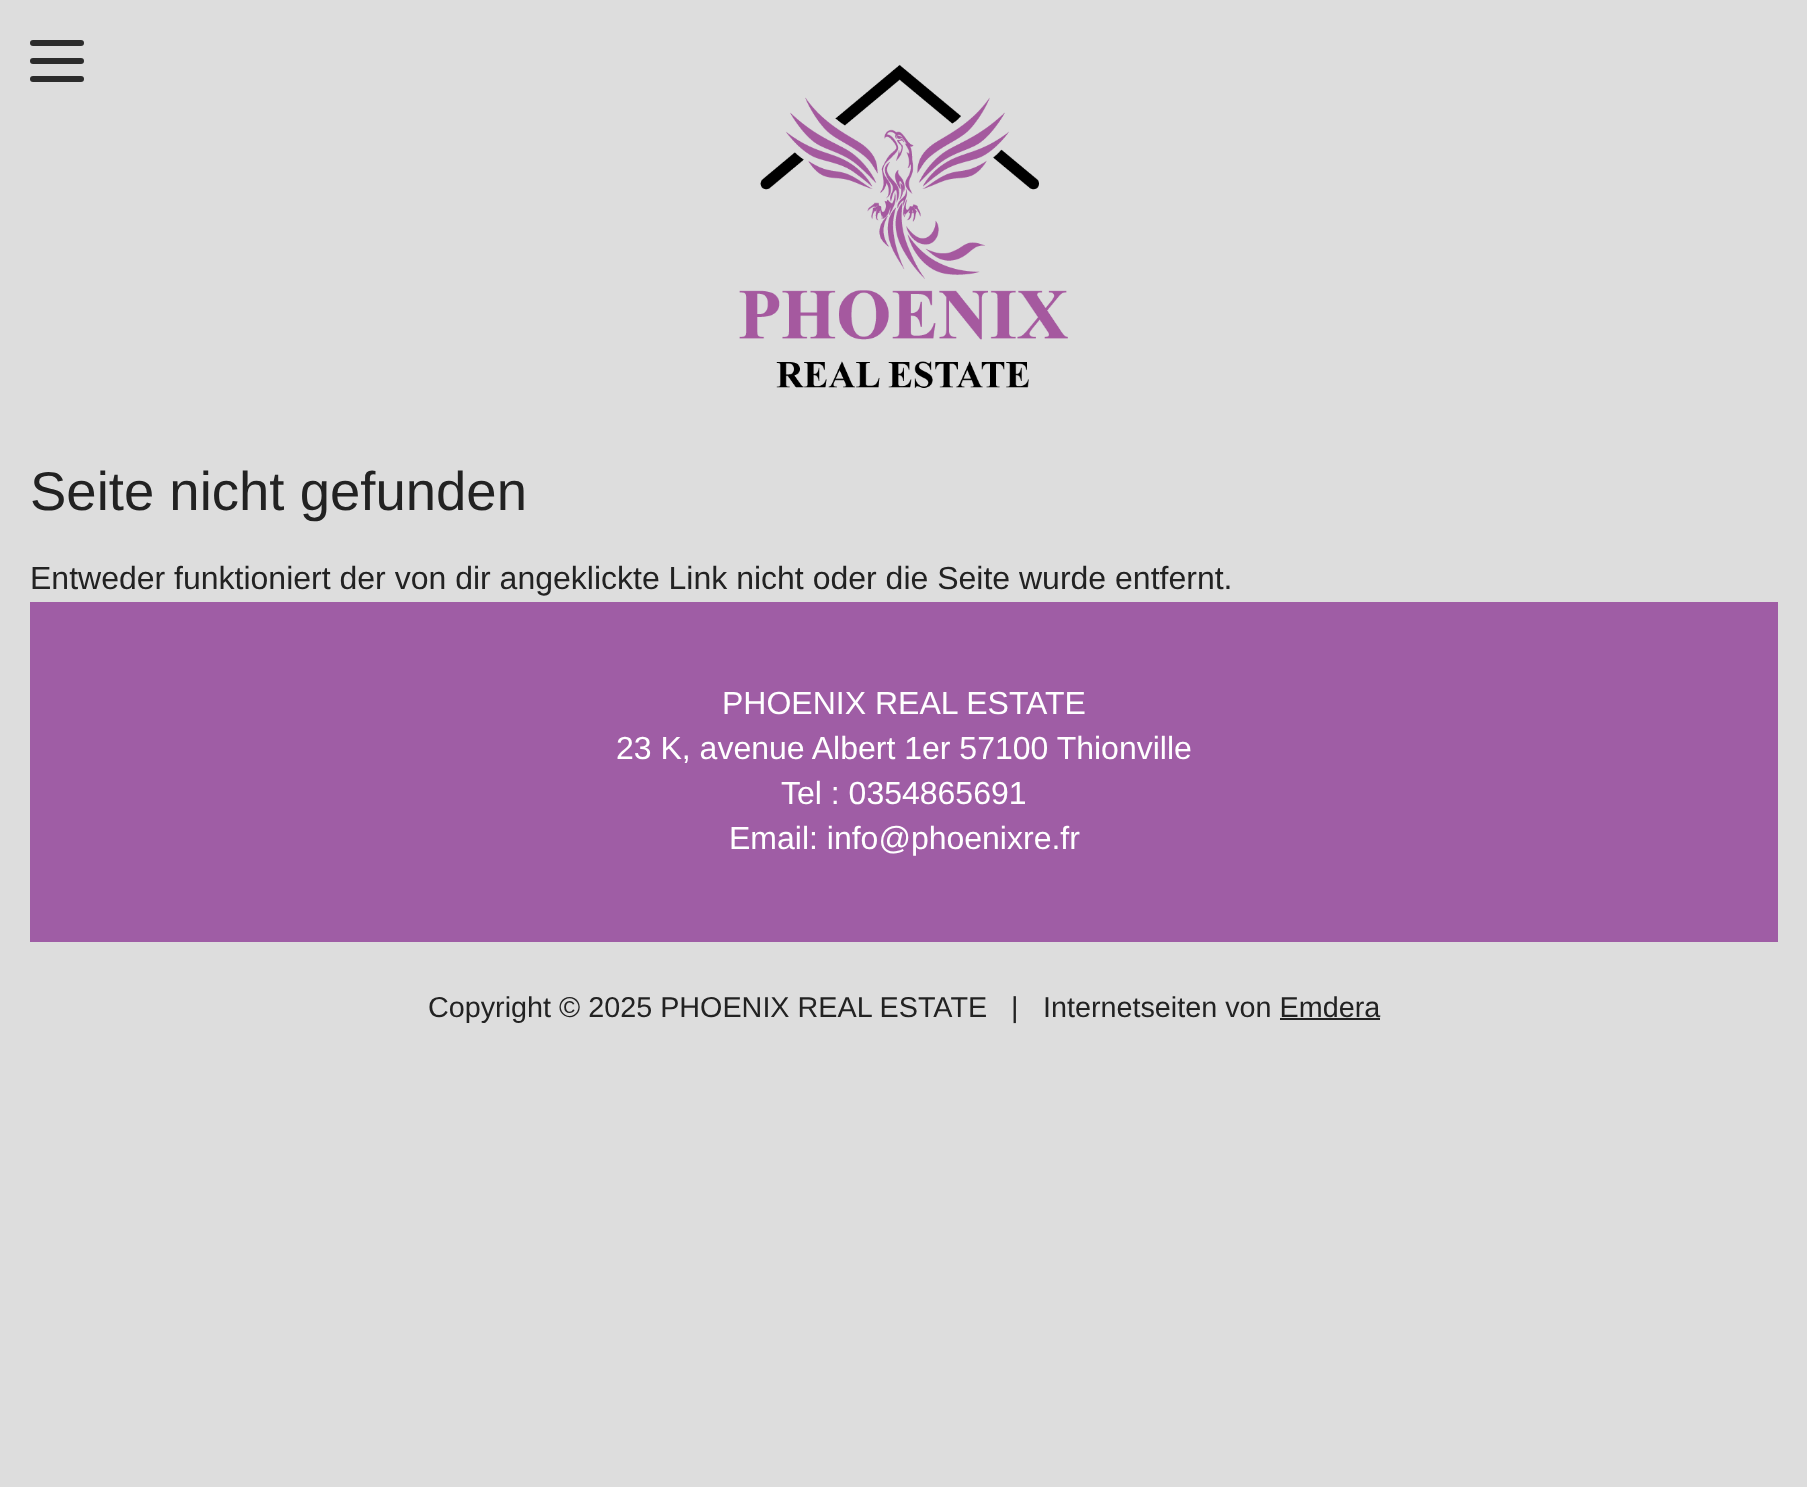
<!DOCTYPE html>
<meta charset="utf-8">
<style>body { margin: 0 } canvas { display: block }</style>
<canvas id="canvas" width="1807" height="1487"></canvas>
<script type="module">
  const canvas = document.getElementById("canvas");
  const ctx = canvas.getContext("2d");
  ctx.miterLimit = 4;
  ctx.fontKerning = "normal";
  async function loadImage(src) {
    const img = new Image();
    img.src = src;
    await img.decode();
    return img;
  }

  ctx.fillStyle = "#dddddd";
  ctx.fillRect(0, 0, 1807, 1487);
  ctx.fillStyle = "#2c2c2c";
  ctx.beginPath();
  ctx.roundRect(30, 40, 54, 6, 3);
  ctx.fill();
  ctx.beginPath();
  ctx.roundRect(30, 58, 54, 6, 3);
  ctx.fill();
  ctx.beginPath();
  ctx.roundRect(30, 76, 54, 6, 3);
  ctx.fill();
  ctx.drawImage(await loadImage("img1.png"), 739, 64, 329, 324);
  ctx.font = "54.5px Liberation Sans";
  ctx.fillStyle = "#222222";
  ctx.fillText("Seite nicht gefunden", 30, 510);
  ctx.font = "32px Liberation Sans";
  ctx.fillText("Entweder funktioniert der von dir angeklickte Link nicht oder die Seite wurde entfernt.", 30, 589);
  ctx.fillStyle = "#9f5da5";
  ctx.fillRect(30, 602, 1748, 340);
  ctx.fillStyle = "#ffffff";
  ctx.fillText("PHOENIX REAL ESTATE", 722, 714);
  ctx.fillText("23 K, avenue Albert 1er 57100 Thionville", 616, 759);
  ctx.fillText("Tel : 0354865691", 781, 804);
  ctx.fillText("Email: info@phoenixre.fr", 729, 849);
  ctx.font = "28.75px Liberation Sans";
  ctx.fillStyle = "#222222";
  ctx.fillText("Copyright © 2025 PHOENIX REAL ESTATE", 428, 1017);
  ctx.fillText("|", 1011, 1017);
  ctx.fillText("Internetseiten von Emdera", 1043, 1017);
  ctx.fillRect(1280, 1018, 100, 2);
</script>
